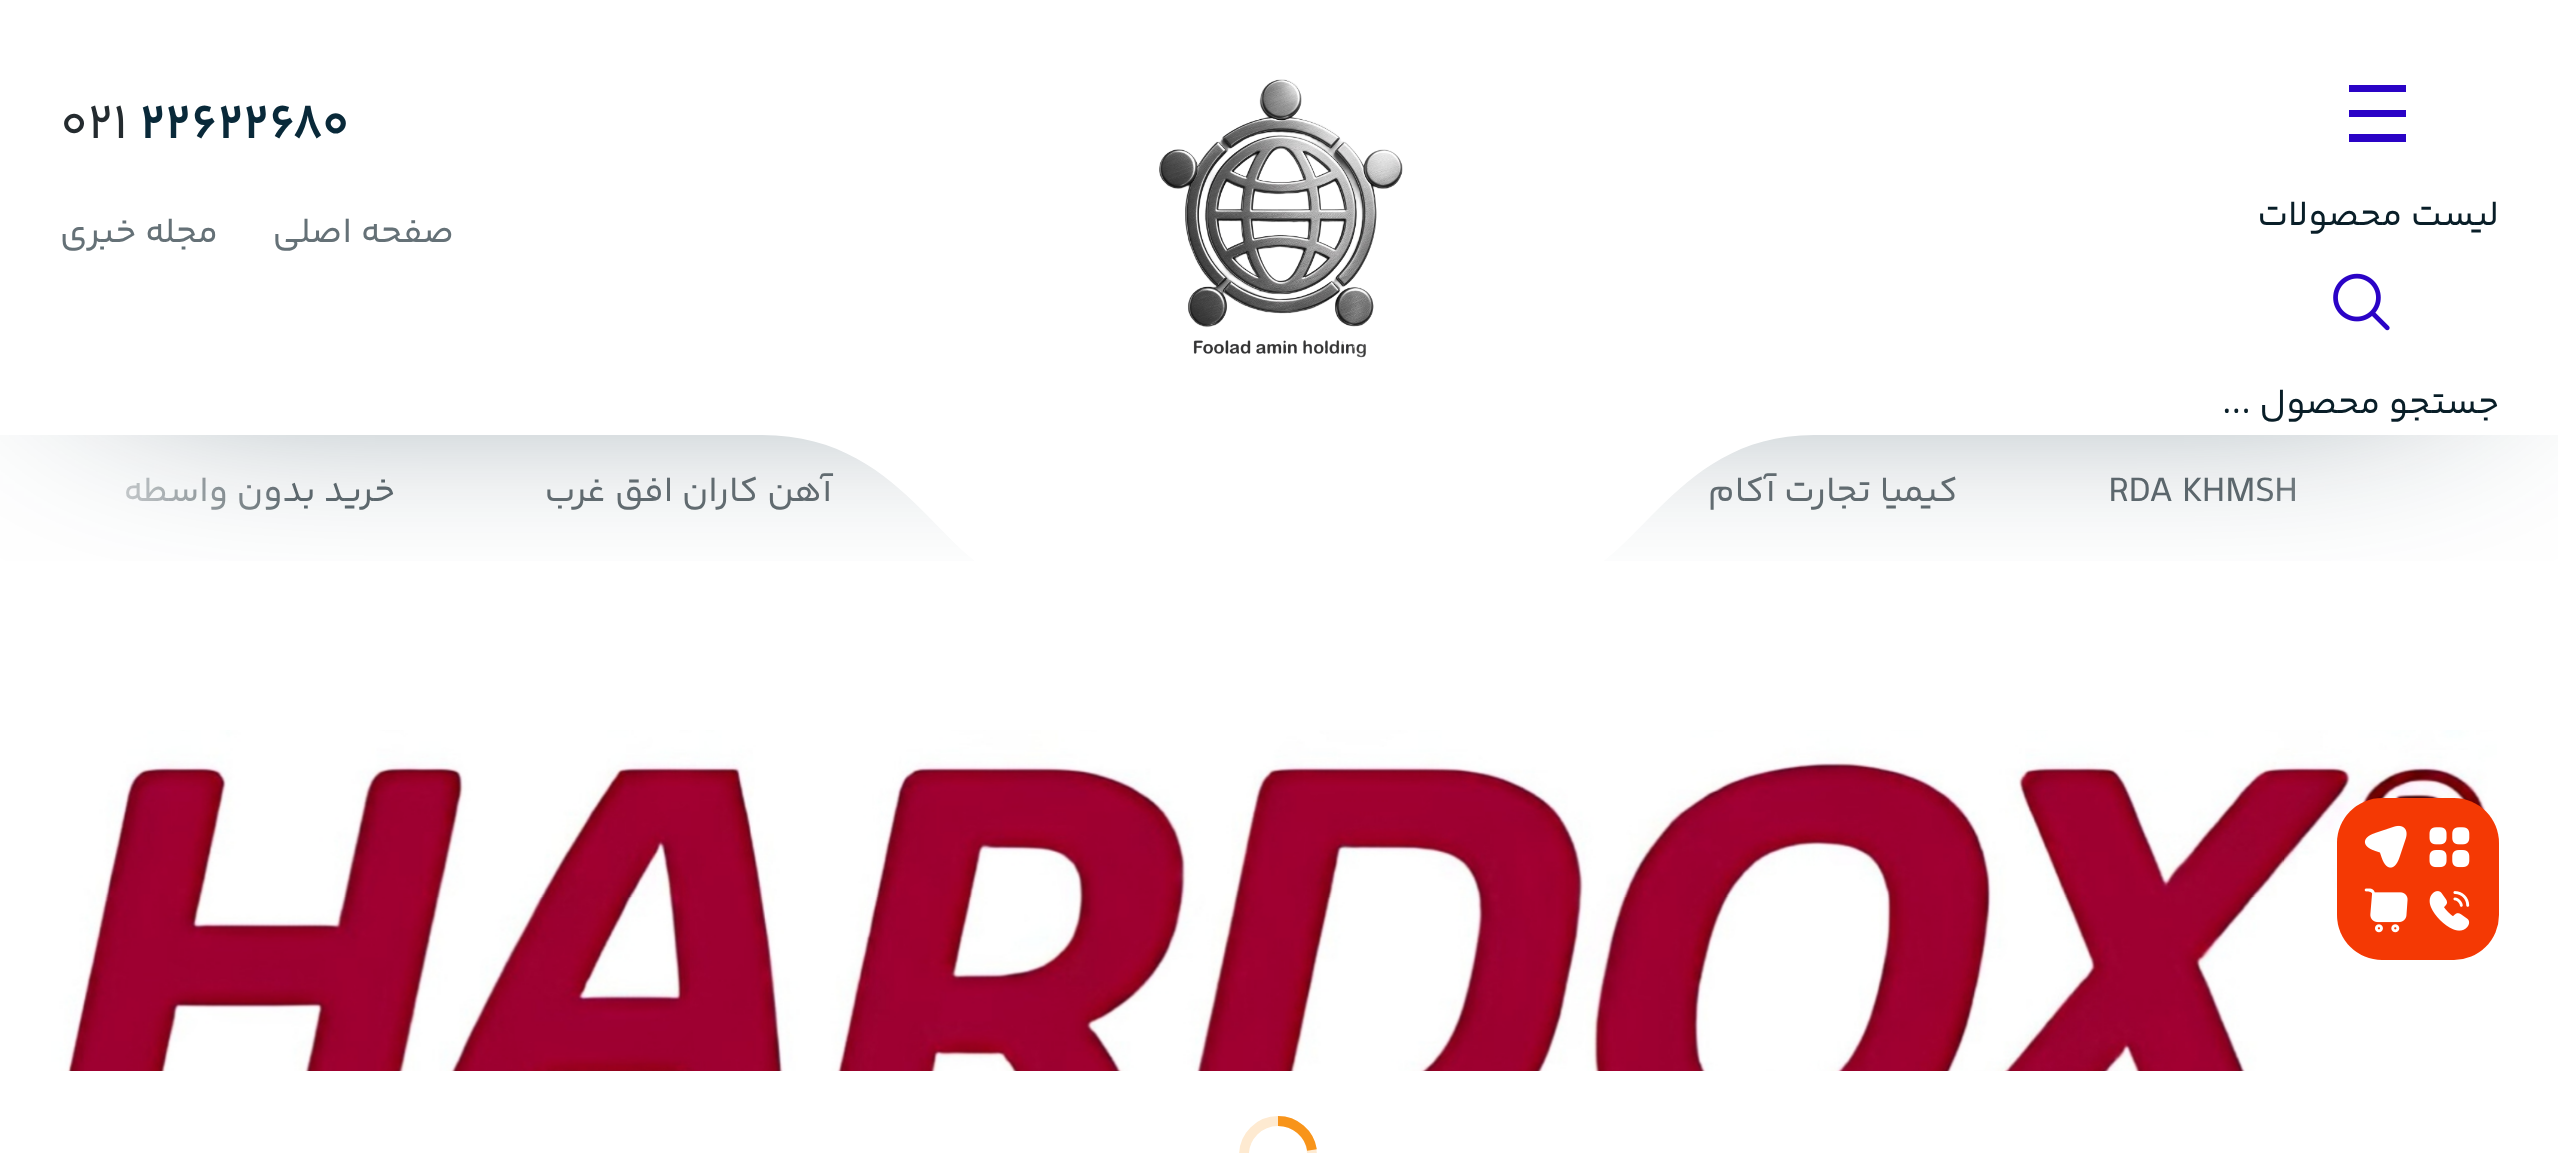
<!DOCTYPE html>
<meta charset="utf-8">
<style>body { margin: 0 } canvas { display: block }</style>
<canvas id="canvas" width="2558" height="1153"></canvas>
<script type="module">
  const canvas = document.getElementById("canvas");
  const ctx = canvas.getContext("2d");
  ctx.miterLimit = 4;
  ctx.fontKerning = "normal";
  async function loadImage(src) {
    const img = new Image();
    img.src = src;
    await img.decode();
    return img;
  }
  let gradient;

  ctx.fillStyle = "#ffffff";
  ctx.fillRect(0, 0, 2558, 1153);
  ctx.font = "36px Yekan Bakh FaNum";
  ctx.fillStyle = "#616b70";
  ctx.fillText("RDA KHMSH", 2108, 501);
  gradient = ctx.createLinearGradient(2259, 497, 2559, 497);
  gradient.addColorStop(0, "rgba(255, 255, 255, 0)");
  gradient.addColorStop(0.67, "rgba(255, 255, 255, 0.76)");
  gradient.addColorStop(0.92, "#ffffff");
  gradient.addColorStop(1, "#ffffff");
  ctx.fillStyle = gradient;
  ctx.fillRect(2265, 477, 29, 24);
  ctx.direction = "rtl";
  ctx.fillStyle = "#616b70";
  ctx.fillText("خرید بدون واسطه", 395, 501);
  gradient = ctx.createLinearGradient(0, 497, 300, 497);
  gradient.addColorStop(0, "#ffffff");
  gradient.addColorStop(0.08, "#ffffff");
  gradient.addColorStop(0.33, "rgba(255, 255, 255, 0.76)");
  gradient.addColorStop(1, "rgba(255, 255, 255, 0)");
  ctx.fillStyle = gradient;
  ctx.fillRect(125, 477, 169, 33);
  ctx.save();
  ctx.beginPath();
  ctx.rect(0, 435, 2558, 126);
  ctx.clip();
  ctx.fillStyle = "#092939";
  ctx.filter = "blur(120px)";
  ctx.beginPath();
  ctx.rect(120, 120, 2319, 195);
  ctx.fill();
  ctx.filter = "none";
  ctx.restore();
  ctx.drawImage(await loadImage("img1.png"), 1159, 79, 244, 279);
  ctx.direction = "ltr";
  ctx.font = "600 51px Yekan Bakh FaNum";
  ctx.fillStyle = "#092939";
  ctx.fillText("22622680", 140, 138);
  ctx.font = "51px Yekan Bakh FaNum";
  ctx.fillStyle = "#242b2f";
  ctx.fillText("021", 60, 138);
  ctx.direction = "rtl";
  ctx.font = "36px Yekan Bakh FaNum";
  ctx.fillStyle = "#657177";
  ctx.fillText("صفحه اصلی", 454, 242);
  ctx.fillText("مجله خبری", 218, 242);
  ctx.fillStyle = "#2a03c6";
  ctx.beginPath();
  ctx.moveTo(2349, 134);
  ctx.lineTo(2406, 134);
  ctx.lineTo(2406, 142);
  ctx.lineTo(2349, 142);
  ctx.closePath();
  ctx.moveTo(2349, 110);
  ctx.lineTo(2406, 110);
  ctx.lineTo(2406, 117);
  ctx.lineTo(2349, 117);
  ctx.closePath();
  ctx.moveTo(2349, 85);
  ctx.lineTo(2406, 85);
  ctx.lineTo(2406, 92);
  ctx.lineTo(2349, 92);
  ctx.closePath();
  ctx.fill();
  ctx.fillStyle = "#091e28";
  ctx.fillText("لیست محصولات", 2499, 225);
  ctx.drawImage(await loadImage("img2.png"), 2333, 273, 57, 58);
  ctx.fillText("جستجو محصول ...", 2499, 413);
  ctx.fillStyle = "#616b70";
  ctx.fillText("کیمیا تجارت آکام", 1958, 501);
  ctx.fillText("آهن کاران افق غرب", 832, 501);
  ctx.save();
  ctx.beginPath();
  ctx.rect(561, 435, 1440, 300);
  ctx.clip();
  ctx.fillStyle = "#ffffff";
  ctx.beginPath();
  ctx.moveTo(-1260, -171);
  ctx.lineTo(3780, -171);
  ctx.lineTo(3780, 435);
  ctx.lineTo(1814, 435);
  ctx.bezierCurveTo(1665, 435, 1635, 585, 1543, 585);
  ctx.lineTo(1034, 585);
  ctx.bezierCurveTo(945, 585, 915, 435, 762, 435);
  ctx.lineTo(-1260, 435);
  ctx.closePath();
  ctx.fill();
  ctx.restore();
  ctx.drawImage(await loadImage("img3.png"), 47, 730, 2450, 341);
  ctx.fillStyle = "#f43904";
  ctx.beginPath();
  ctx.roundRect(2337, 798, 162, 162, 45);
  ctx.fill();
  ctx.drawImage(await loadImage("img4.png"), 2364, 825, 106, 108);
  ctx.beginPath();
  ctx.arc(1278, 1155, 34, 0, Math.PI * 2);
  ctx.strokeStyle = "#feead1";
  ctx.lineWidth = 9.8;
  ctx.stroke();
  ctx.beginPath();
  ctx.moveTo(1278, 1121);
  ctx.bezierCurveTo(1295, 1121, 1309.5, 1133.5, 1312, 1150);
  ctx.strokeStyle = "#f8941a";
  ctx.stroke();
</script>
